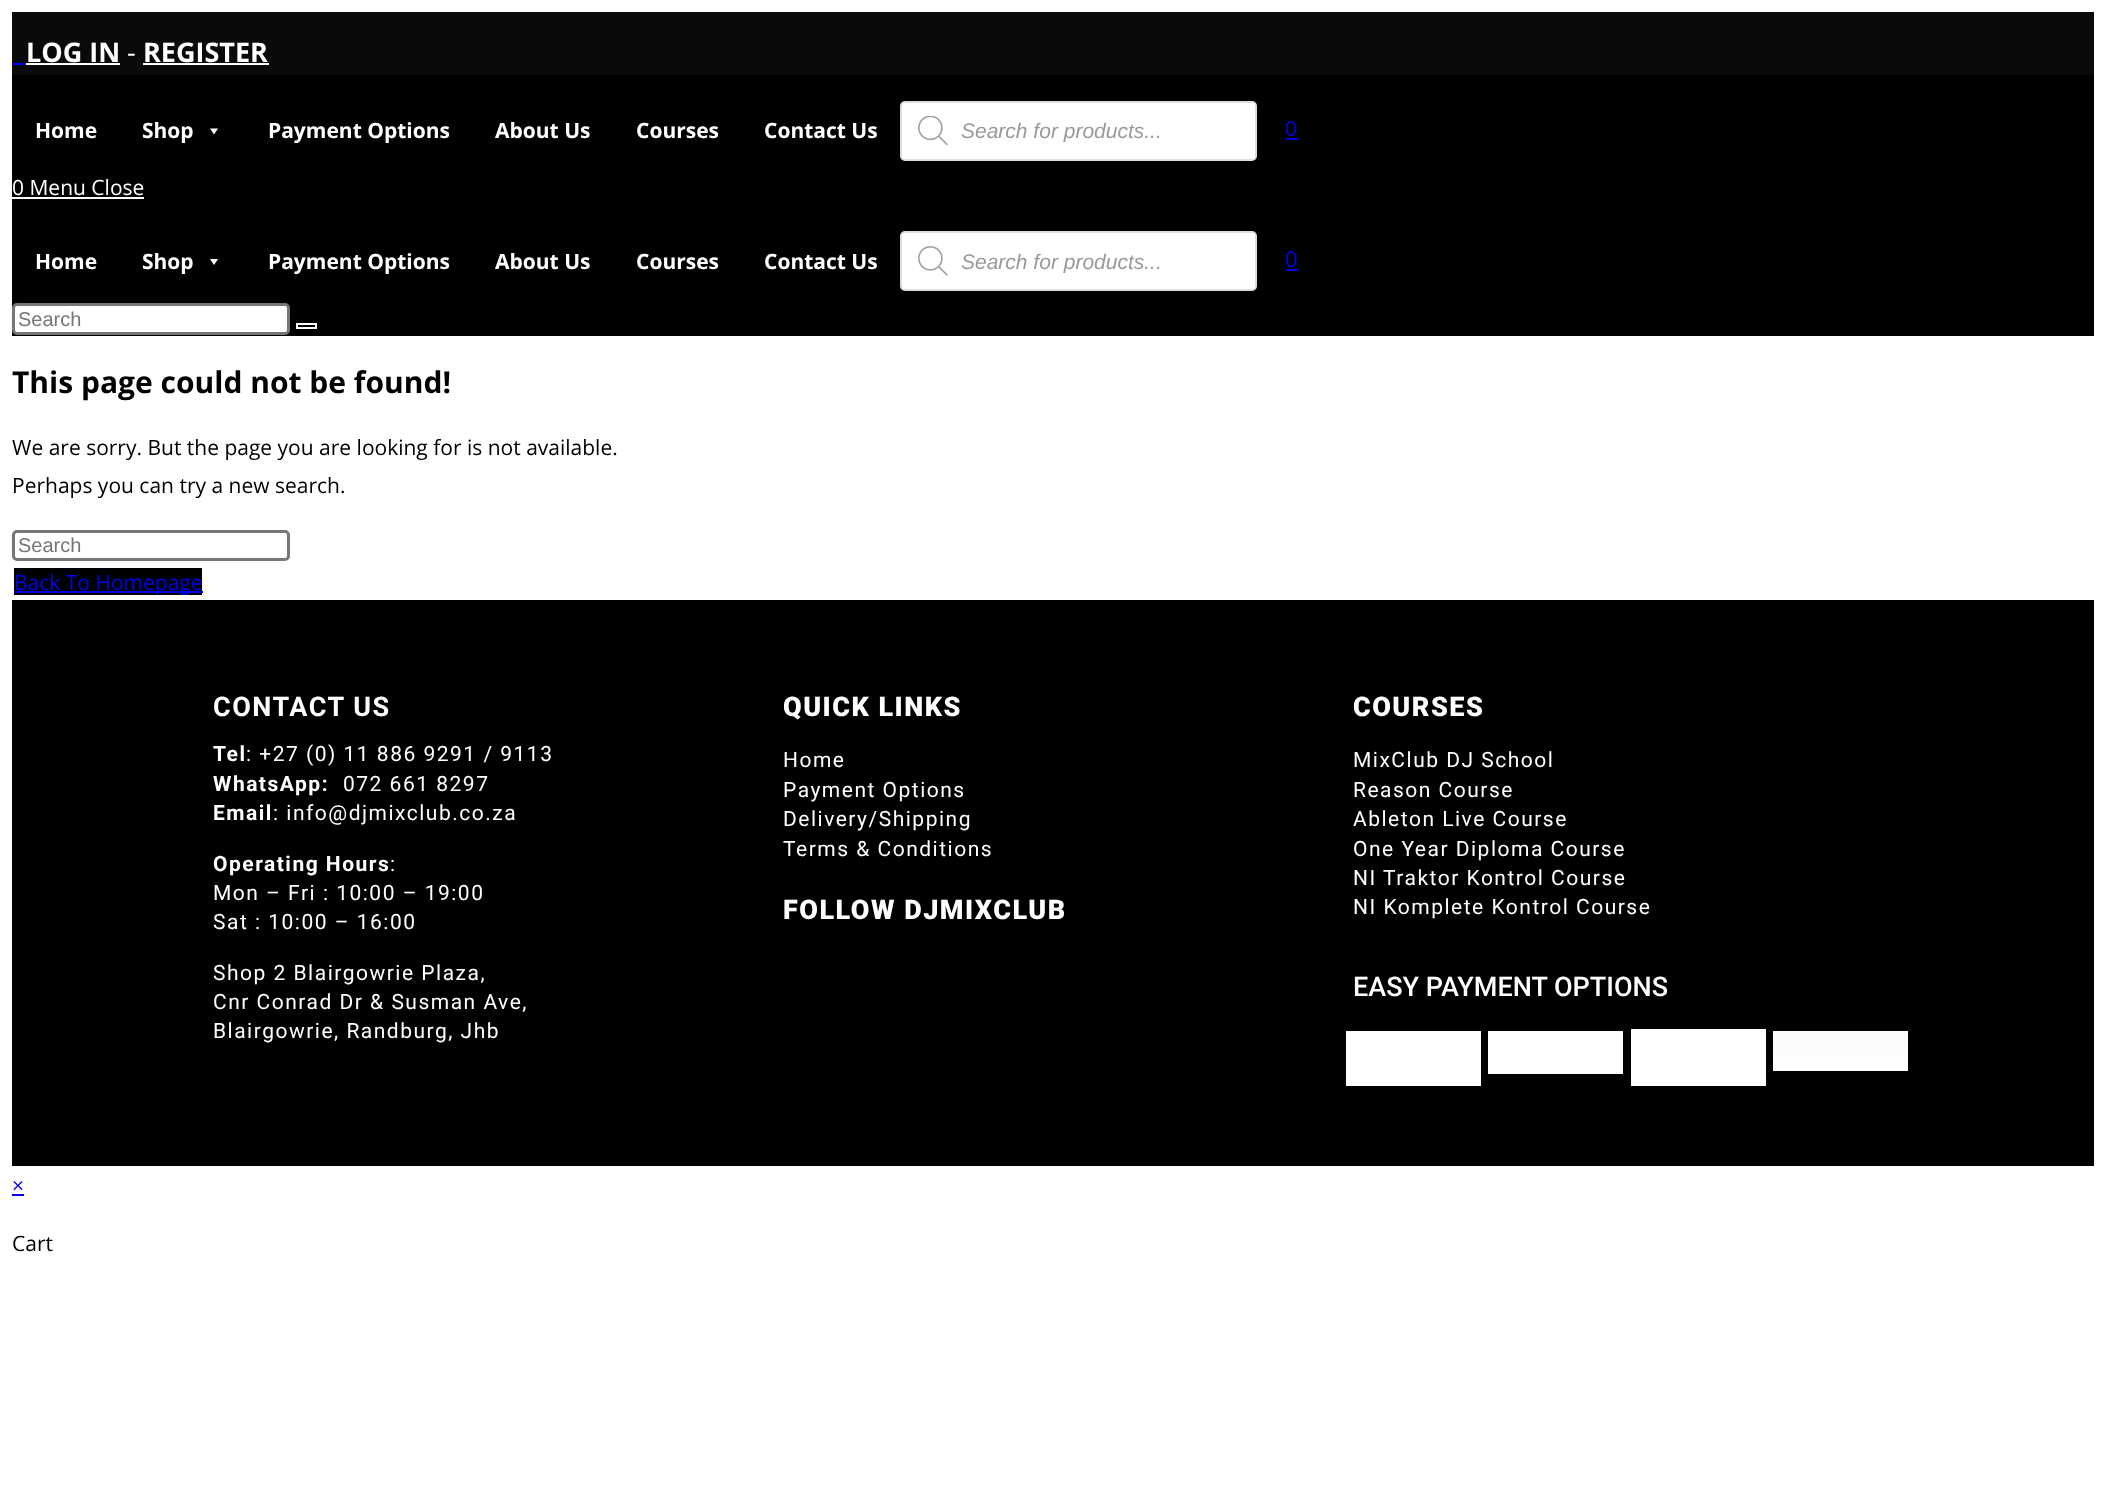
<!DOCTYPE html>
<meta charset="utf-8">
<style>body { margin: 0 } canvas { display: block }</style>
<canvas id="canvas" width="2106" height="1491"></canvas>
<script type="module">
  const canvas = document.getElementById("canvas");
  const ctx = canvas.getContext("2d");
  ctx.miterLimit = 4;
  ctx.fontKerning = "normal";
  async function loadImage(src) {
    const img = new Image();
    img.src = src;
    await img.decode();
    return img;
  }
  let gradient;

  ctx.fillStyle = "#ffffff";
  ctx.fillRect(0, 0, 2106, 1491);
  ctx.fillStyle = "#0a0a0a";
  ctx.fillRect(12, 12, 2082, 63);
  ctx.font = "bold 27px Open Sans";
  ctx.fillStyle = "#ffffff";
  ctx.fillText("LOG IN", 26, 62);
  ctx.fillRect(26, 63, 94, 2);
  ctx.font = "27px Open Sans";
  ctx.fillText("-", 127, 62);
  ctx.font = "bold 27px Open Sans";
  ctx.fillText("REGISTER", 143, 62);
  ctx.fillRect(143, 63, 126, 2);
  ctx.fillStyle = "#0000ee";
  ctx.fillRect(12, 63, 14, 2);
  ctx.fillStyle = "#000000";
  ctx.fillRect(12, 75, 2082, 261);
  ctx.font = "bold 21px Open Sans";
  ctx.fillStyle = "#ffffff";
  ctx.fillText("Home", 35, 138);
  ctx.fillText("Shop", 142, 138);
  ctx.beginPath();
  ctx.moveTo(218, 128.5);
  ctx.lineTo(214, 134.5);
  ctx.lineTo(210, 128.5);
  ctx.closePath();
  ctx.fill();
  ctx.fillText("Payment Options", 268, 138);
  ctx.fillText("About Us", 495, 138);
  ctx.fillText("Courses", 636, 138);
  ctx.fillText("Contact Us", 764, 138);
  ctx.beginPath();
  ctx.roundRect(901, 102, 355, 58, 4);
  ctx.fill();
  ctx.strokeStyle = "#dddddd";
  ctx.lineWidth = 2;
  ctx.stroke();
  ctx.drawImage(await loadImage("img1.png"), 918, 116, 30, 30);
  ctx.font = "italic 21px Liberation Sans";
  ctx.fillStyle = "#999999";
  ctx.fillText("Search for products...", 961, 138);
  ctx.font = "21px Open Sans";
  ctx.fillStyle = "#0000ee";
  ctx.fillText("0", 1285, 136);
  ctx.fillRect(1286, 138, 12, 2);
  ctx.fillStyle = "#ffffff";
  ctx.fillText("0 Menu Close", 12, 195);
  ctx.fillRect(12, 197, 132, 2);
  ctx.font = "bold 21px Open Sans";
  ctx.fillText("Home", 35, 269);
  ctx.fillText("Shop", 142, 269);
  ctx.beginPath();
  ctx.moveTo(218, 259);
  ctx.lineTo(214, 265);
  ctx.lineTo(210, 259);
  ctx.closePath();
  ctx.fill();
  ctx.fillText("Payment Options", 268, 269);
  ctx.fillText("About Us", 495, 269);
  ctx.fillText("Courses", 636, 269);
  ctx.fillText("Contact Us", 764, 269);
  ctx.beginPath();
  ctx.roundRect(901, 232, 355, 58, 4);
  ctx.fill();
  ctx.stroke();
  ctx.drawImage(await loadImage("img2.png"), 918, 246, 30, 30);
  ctx.save();
  ctx.beginPath();
  ctx.rect(962, 249, 271, 24);
  ctx.clip();
  ctx.font = "italic 21px Liberation Sans";
  ctx.fillStyle = "#999999";
  ctx.fillText("Search for products...", 961, 269);
  ctx.restore();
  ctx.font = "22px Open Sans";
  ctx.fillStyle = "#0000ee";
  ctx.fillText("0", 1285, 267);
  ctx.fillRect(1286, 269, 12, 2);
  ctx.fillStyle = "#ffffff";
  ctx.beginPath();
  ctx.roundRect(13.5, 304.5, 275, 29, 3.5);
  ctx.fill();
  ctx.strokeStyle = "#767676";
  ctx.lineWidth = 3;
  ctx.stroke();
  ctx.font = "20px Liberation Sans";
  ctx.fillStyle = "#757575";
  ctx.fillText("Search", 18, 326);
  ctx.strokeStyle = "#ffffff";
  ctx.lineWidth = 2;
  ctx.strokeRect(297, 324, 19, 4);
  ctx.font = "bold 30px Open Sans";
  ctx.fillStyle = "#000000";
  ctx.fillText("This page could not be found!", 12, 393);
  ctx.font = "21px Open Sans";
  ctx.fillText("We are sorry. But the page you are looking for is not available.", 12, 455);
  ctx.fillText("Perhaps you can try a new search.", 12, 493);
  ctx.beginPath();
  ctx.roundRect(13.5, 531.5, 275, 28, 3.5);
  ctx.strokeStyle = "#767676";
  ctx.lineWidth = 3;
  ctx.stroke();
  ctx.font = "20px Liberation Sans";
  ctx.fillStyle = "#757575";
  ctx.fillText("Search", 18, 552);
  ctx.fillStyle = "#000000";
  ctx.fillRect(14, 568, 188, 27);
  ctx.fillStyle = "#0000ee";
  ctx.fillRect(14, 591, 189, 2);
  ctx.font = "21px Open Sans";
  ctx.fillText("Back To Homepage", 14, 590);
  ctx.fillStyle = "#000000";
  ctx.fillRect(12, 600, 2082, 566);
  ctx.letterSpacing = "1.5px";
  ctx.font = "bold 27px Roboto";
  ctx.fillStyle = "#ffffff";
  ctx.fillText("CONTACT US", 213, 716);
  ctx.font = "bold 21px Roboto";
  ctx.fillText("Tel", 213, 761);
  ctx.font = "21px Roboto";
  ctx.fillText(": +27 (0) 11 886 9291 / 9113", 246, 761);
  ctx.font = "bold 21px Roboto";
  ctx.fillText("WhatsApp:", 213, 791);
  ctx.font = "21px Roboto";
  ctx.fillText("072 661 8297", 343, 791);
  ctx.font = "bold 21px Roboto";
  ctx.fillText("Email", 213, 820);
  ctx.font = "21px Roboto";
  ctx.fillText(": info@djmixclub.co.za", 273, 820);
  ctx.font = "bold 21px Roboto";
  ctx.fillText("Operating Hours", 213, 871);
  ctx.font = "21px Roboto";
  ctx.fillText(":", 390, 871);
  ctx.fillText("Mon – Fri : 10:00 – 19:00", 213, 900);
  ctx.fillText("Sat : 10:00 – 16:00", 213, 929);
  ctx.fillText("Shop 2 Blairgowrie Plaza,", 213, 980);
  ctx.fillText("Cnr Conrad Dr & Susman Ave,", 213, 1009);
  ctx.fillText("Blairgowrie, Randburg, Jhb", 213, 1038);
  ctx.font = "900 27px Roboto";
  ctx.fillText("QUICK LINKS", 783, 716);
  ctx.font = "21px Roboto";
  ctx.fillText("Home", 783, 767);
  ctx.fillText("Payment Options", 783, 797);
  ctx.fillText("Delivery/Shipping", 783, 826);
  ctx.fillText("Terms & Conditions", 783, 856);
  ctx.font = "900 27px Roboto";
  ctx.fillText("FOLLOW DJMIXCLUB", 783, 919);
  ctx.fillText("COURSES", 1353, 716);
  ctx.font = "21px Roboto";
  ctx.fillText("MixClub DJ School", 1353, 767);
  ctx.fillText("Reason Course", 1353, 797);
  ctx.fillText("Ableton Live Course", 1353, 826);
  ctx.fillText("One Year Diploma Course", 1353, 856);
  ctx.fillText("NI Traktor Kontrol Course", 1353, 885);
  ctx.fillText("NI Komplete Kontrol Course", 1353, 914);
  ctx.letterSpacing = "0px";
  ctx.font = "500 27px Roboto";
  ctx.fillText("EASY PAYMENT OPTIONS", 1353, 996);
  ctx.fillRect(1346, 1031, 135, 55);
  ctx.fillRect(1488, 1031, 135, 43);
  ctx.fillRect(1631, 1029, 135, 57);
  gradient = ctx.createLinearGradient(1841, 1031, 1841, 1071);
  gradient.addColorStop(0, "#fafafa");
  gradient.addColorStop(1, "#ffffff");
  ctx.fillStyle = gradient;
  ctx.fillRect(1773, 1031, 135, 40);
  ctx.font = "21px Open Sans";
  ctx.fillStyle = "#0000ee";
  ctx.fillText("×", 12, 1193);
  ctx.fillRect(12, 1194, 12, 2);
  ctx.fillStyle = "#000000";
  ctx.fillText("Cart", 12, 1251);
</script>
